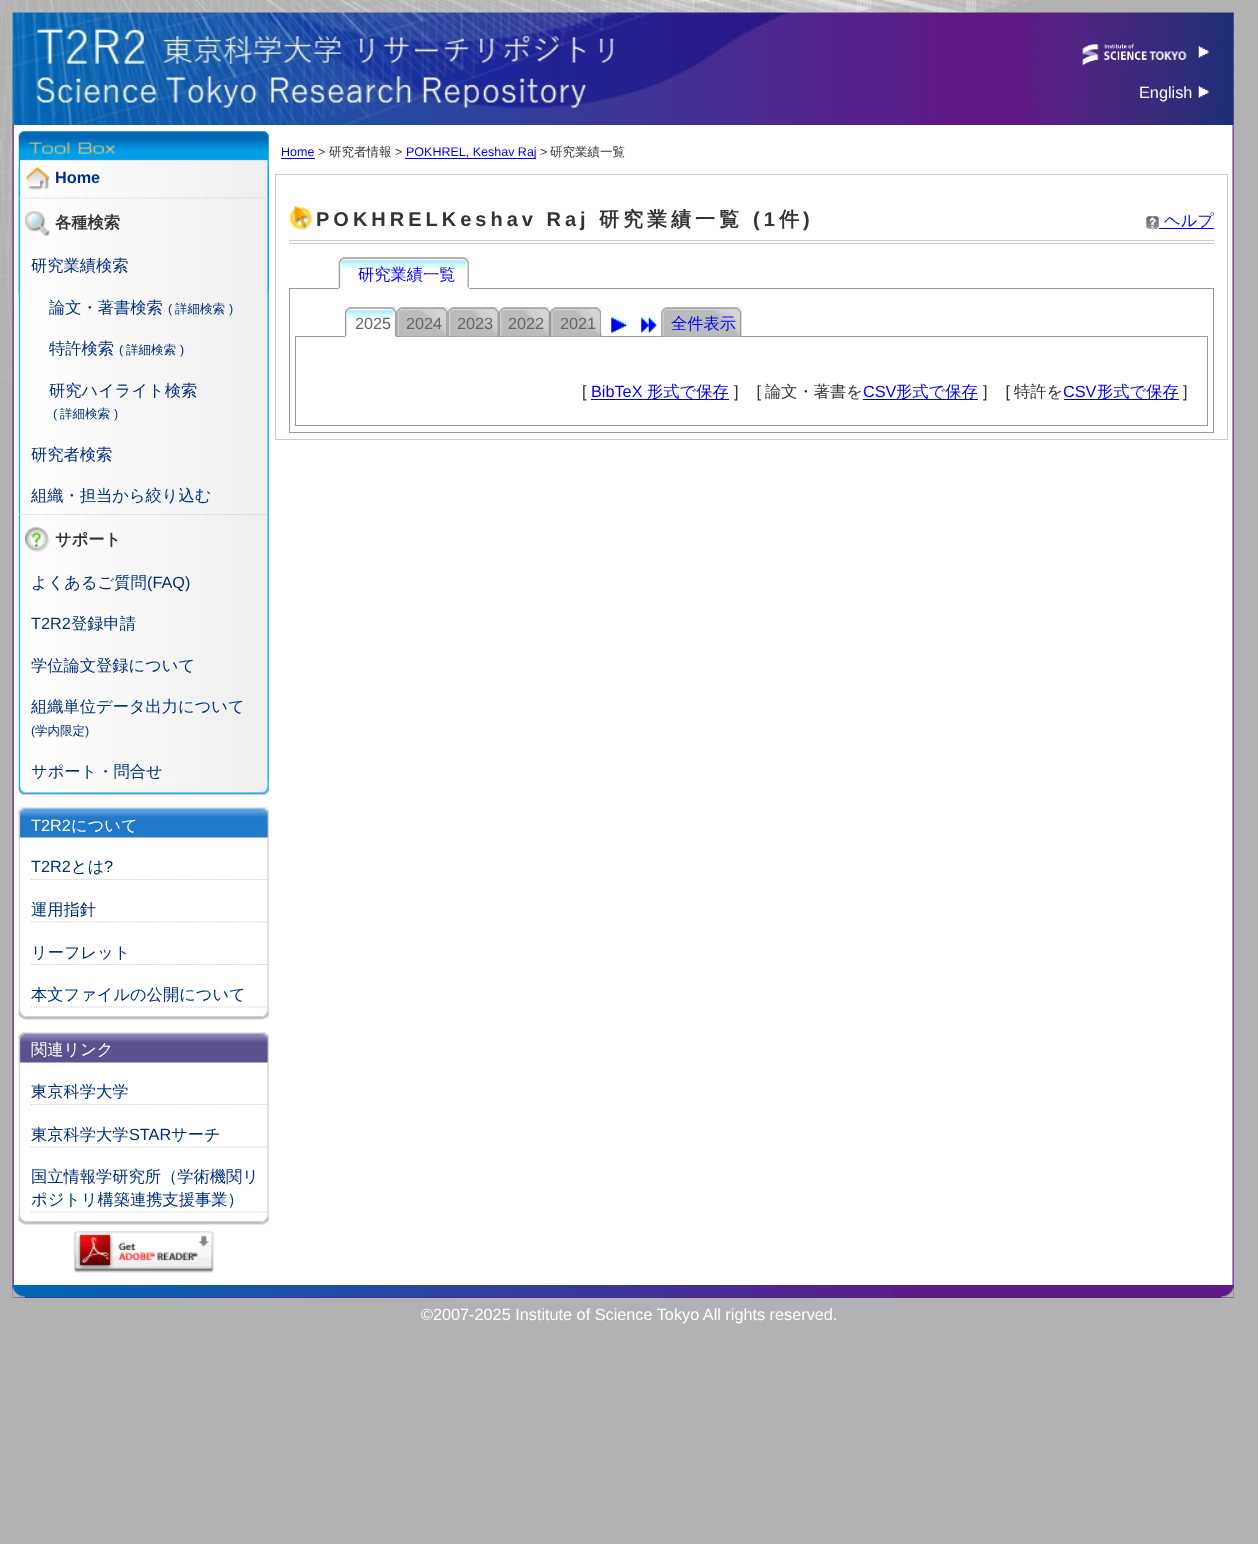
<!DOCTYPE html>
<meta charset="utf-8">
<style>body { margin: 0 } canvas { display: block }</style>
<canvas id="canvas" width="1258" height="1544"></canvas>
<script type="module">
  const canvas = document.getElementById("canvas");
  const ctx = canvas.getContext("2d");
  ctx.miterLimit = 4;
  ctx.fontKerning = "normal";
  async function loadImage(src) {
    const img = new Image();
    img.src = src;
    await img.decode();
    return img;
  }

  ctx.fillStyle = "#b2b2b2";
  ctx.fillRect(0, 0, 1258, 1544);
  ctx.drawImage(await loadImage("img1.png"), 0, 0, 1031, 380);
  ctx.drawImage(await loadImage("img2.png"), 12, 12, 1222, 113);
  ctx.drawImage(await loadImage("img3.png"), 1082, 43, 105, 23);
  ctx.drawImage(await loadImage("img4.png"), 1198, 46, 11, 12);
  ctx.font = "16.25px Liberation Sans";
  ctx.fillStyle = "#ffffff";
  ctx.fillText("English", 1139, 98);
  ctx.drawImage(await loadImage("img5.png"), 1198, 86, 11, 12);
  ctx.fillRect(13, 125, 1221, 1160);
  ctx.drawImage(await loadImage("img6.png"), 12, 125, 2, 1160);
  ctx.drawImage(await loadImage("img7.png"), 18, 131, 251, 163);
  ctx.drawImage(await loadImage("img8.png"), 18, 782, 251, 13);
  ctx.drawImage(await loadImage("img9.png"), 18, 166, 251, 617);
  ctx.drawImage(await loadImage("img10.png"), 26, 167, 24, 23);
  ctx.font = "bold 16.25px Liberation Sans";
  ctx.fillStyle = "#002e81";
  ctx.fillText("Home", 55, 183);
  ctx.beginPath();
  ctx.moveTo(19, 198);
  ctx.lineTo(269, 198);
  ctx.strokeStyle = "#cccccc";
  ctx.lineWidth = 1.2;
  ctx.setLineDash([1.25, 1.25]);
  ctx.stroke();
  ctx.drawImage(await loadImage("img11.png"), 25, 211, 25, 26);
  ctx.font = "bold 16.25px WenQuanYi Zen Hei";
  ctx.fillStyle = "#333333";
  ctx.fillText("各種検索", 55, 228);
  ctx.font = "500 16.25px WenQuanYi Zen Hei";
  ctx.fillStyle = "#002e81";
  ctx.fillText("研究業績検索", 31, 271);
  ctx.fillText("論文・著書検索", 49, 313);
  ctx.font = "12.5px Liberation Sans";
  ctx.fillText("(", 168, 313);
  ctx.font = "500 12.5px WenQuanYi Zen Hei";
  ctx.fillText("詳細検索", 175, 313);
  ctx.font = "12.5px Liberation Sans";
  ctx.fillText(")", 229, 313);
  ctx.font = "500 16.25px WenQuanYi Zen Hei";
  ctx.fillText("特許検索", 49, 354);
  ctx.font = "12.5px Liberation Sans";
  ctx.fillText("(", 119, 354);
  ctx.font = "500 12.5px WenQuanYi Zen Hei";
  ctx.fillText("詳細検索", 126, 354);
  ctx.font = "12.5px Liberation Sans";
  ctx.fillText(")", 180, 354);
  ctx.font = "500 16.25px WenQuanYi Zen Hei";
  ctx.fillText("研究ハイライト検索", 49, 396);
  ctx.font = "12.5px Liberation Sans";
  ctx.fillText("(", 53, 418);
  ctx.font = "500 12.5px WenQuanYi Zen Hei";
  ctx.fillText("詳細検索", 60, 418);
  ctx.font = "12.5px Liberation Sans";
  ctx.fillText(")", 114, 418);
  ctx.font = "500 16.25px WenQuanYi Zen Hei";
  ctx.fillText("研究者検索", 31, 460);
  ctx.fillText("組織・担当から絞り込む", 31, 501);
  ctx.beginPath();
  ctx.moveTo(19, 514.5);
  ctx.lineTo(269, 514.5);
  ctx.stroke();
  ctx.drawImage(await loadImage("img12.png"), 25, 527, 25, 26);
  ctx.font = "bold 16.25px WenQuanYi Zen Hei";
  ctx.fillStyle = "#333333";
  ctx.fillText("サポート", 55, 545);
  ctx.font = "500 16.25px WenQuanYi Zen Hei";
  ctx.fillStyle = "#002e81";
  ctx.fillText("よくあるご質問", 31, 588);
  ctx.font = "16.25px Liberation Sans";
  ctx.fillText("(FAQ)", 147, 588);
  ctx.fillText("T2R2", 31, 629);
  ctx.font = "500 16.25px WenQuanYi Zen Hei";
  ctx.fillText("登録申請", 71, 629);
  ctx.fillText("学位論文登録について", 31, 671);
  ctx.fillText("組織単位データ出力について", 31, 712);
  ctx.font = "12.5px Liberation Sans";
  ctx.fillText("(", 31, 735);
  ctx.font = "500 12.5px WenQuanYi Zen Hei";
  ctx.fillText("学内限定", 35, 735);
  ctx.font = "12.5px Liberation Sans";
  ctx.fillText(")", 85, 735);
  ctx.font = "500 16.25px WenQuanYi Zen Hei";
  ctx.fillText("サポート・問合せ", 31, 777);
  ctx.drawImage(await loadImage("img13.png"), 18, 807, 251, 213);
  ctx.drawImage(await loadImage("img14.png"), 18, 1010, 251, 10);
  ctx.drawImage(await loadImage("img15.png"), 18, 807, 251, 31);
  ctx.font = "16.25px Liberation Sans";
  ctx.fillStyle = "#ffffff";
  ctx.fillText("T2R2", 31, 831);
  ctx.font = "500 16.25px WenQuanYi Zen Hei";
  ctx.fillText("について", 71, 831);
  ctx.beginPath();
  ctx.moveTo(31, 879.5);
  ctx.lineTo(267.5, 879.5);
  ctx.stroke();
  ctx.font = "16.25px Liberation Sans";
  ctx.fillStyle = "#002e81";
  ctx.fillText("T2R2", 31, 872);
  ctx.font = "500 16.25px WenQuanYi Zen Hei";
  ctx.fillText("とは", 71, 872);
  ctx.font = "16.25px Liberation Sans";
  ctx.fillText("?", 104, 872);
  ctx.beginPath();
  ctx.moveTo(31, 922);
  ctx.lineTo(267.5, 922);
  ctx.stroke();
  ctx.font = "500 16.25px WenQuanYi Zen Hei";
  ctx.fillText("運用指針", 31, 915);
  ctx.beginPath();
  ctx.moveTo(31, 964.5);
  ctx.lineTo(267.5, 964.5);
  ctx.stroke();
  ctx.fillText("リーフレット", 31, 958);
  ctx.beginPath();
  ctx.moveTo(31, 1007);
  ctx.lineTo(267.5, 1007);
  ctx.stroke();
  ctx.fillText("本文ファイルの公開について", 31, 1000);
  ctx.drawImage(await loadImage("img16.png"), 18, 1032, 251, 193);
  ctx.drawImage(await loadImage("img14.png"), 18, 1215, 251, 10);
  ctx.drawImage(await loadImage("img17.png"), 18, 1032, 251, 31);
  ctx.fillStyle = "#ffffff";
  ctx.fillText("関連リンク", 31, 1055);
  ctx.beginPath();
  ctx.moveTo(31, 1104.5);
  ctx.lineTo(267.5, 1104.5);
  ctx.stroke();
  ctx.fillStyle = "#002e81";
  ctx.fillText("東京科学大学", 31, 1097);
  ctx.beginPath();
  ctx.moveTo(31, 1147);
  ctx.lineTo(267.5, 1147);
  ctx.stroke();
  ctx.fillText("東京科学大学", 31, 1140);
  ctx.font = "16.25px Liberation Sans";
  ctx.fillText("STAR", 129, 1140);
  ctx.font = "500 16.25px WenQuanYi Zen Hei";
  ctx.fillText("サーチ", 171, 1140);
  ctx.beginPath();
  ctx.moveTo(31, 1212);
  ctx.lineTo(267.5, 1212);
  ctx.stroke();
  ctx.fillText("国立情報学研究所（学術機関リ", 31, 1182);
  ctx.fillText("ポジトリ構築連携支援事業）", 31, 1205);
  ctx.drawImage(await loadImage("img18.png"), 73, 1231, 141, 42);
  ctx.drawImage(await loadImage("img19.png"), 1232, 125, 2, 1160);
  ctx.font = "12.5px Liberation Sans";
  ctx.fillStyle = "#0000ee";
  ctx.fillText("Home", 281, 156);
  ctx.fillRect(281, 158, 34, 1);
  ctx.fillStyle = "#333333";
  ctx.fillText(">", 318, 156);
  ctx.font = "500 12.5px WenQuanYi Zen Hei";
  ctx.fillText("研究者情報", 329, 156);
  ctx.font = "12.5px Liberation Sans";
  ctx.fillText(">", 395, 156);
  ctx.fillStyle = "#0000ee";
  ctx.fillRect(405, 158, 131, 1);
  ctx.fillText("POKHREL, Keshav Raj", 406, 156);
  ctx.fillStyle = "#333333";
  ctx.fillText(">", 540, 156);
  ctx.font = "500 12.5px WenQuanYi Zen Hei";
  ctx.fillText("研究業績一覧", 550, 156);
  ctx.lineWidth = 1;
  ctx.setLineDash([]);
  ctx.strokeRect(275.5, 174.5, 952, 265);
  ctx.drawImage(await loadImage("img20.png"), 288, 206, 25, 24);
  ctx.fillStyle = "#cccccc";
  ctx.fillRect(289, 240, 925, 1);
  ctx.fillRect(289, 243, 925, 1);
  ctx.letterSpacing = "4px";
  ctx.font = "bold 20px Liberation Sans";
  ctx.fillStyle = "#333333";
  ctx.fillText("POKHRELKeshav Raj", 316, 226);
  ctx.font = "bold 20px WenQuanYi Zen Hei";
  ctx.fillText("研究業績一覧", 599, 226);
  ctx.font = "bold 20px Liberation Sans";
  ctx.fillText("(1", 753, 226);
  ctx.font = "bold 20px WenQuanYi Zen Hei";
  ctx.fillText("件", 779, 226);
  ctx.font = "bold 20px Liberation Sans";
  ctx.fillText(")", 803, 226);
  ctx.drawImage(await loadImage("img21.png"), 1146, 216, 13, 13);
  ctx.letterSpacing = "0px";
  ctx.font = "500 16.25px WenQuanYi Zen Hei";
  ctx.fillStyle = "#0000ee";
  ctx.fillText("ヘルプ", 1164, 226);
  ctx.fillRect(1159, 228, 55, 1);
  ctx.strokeStyle = "#999999";
  ctx.strokeRect(289.5, 288.5, 924, 144);
  ctx.drawImage(await loadImage("img22.png"), 338, 257, 131, 32);
  ctx.fillStyle = "#ffffff";
  ctx.fillRect(339, 288, 130, 1);
  ctx.drawImage(await loadImage("img23.png"), 343, 257, 126, 31);
  ctx.fillStyle = "#0000ff";
  ctx.fillText("研究業績一覧", 358, 280);
  ctx.strokeRect(295.5, 336.5, 912, 89);
  ctx.drawImage(await loadImage("img24.png"), 345, 307, 52, 31);
  ctx.fillStyle = "#ffffff";
  ctx.fillRect(345, 336, 2, 1);
  ctx.drawImage(await loadImage("img25.png"), 350, 307, 47, 30);
  ctx.font = "16.25px Liberation Sans";
  ctx.fillStyle = "#666666";
  ctx.fillText("2025", 355, 329);
  ctx.drawImage(await loadImage("img26.png"), 396, 307, 52, 30);
  ctx.drawImage(await loadImage("img27.png"), 401, 307, 47, 30);
  ctx.fillText("2024", 406, 329);
  ctx.drawImage(await loadImage("img28.png"), 447, 307, 52, 30);
  ctx.drawImage(await loadImage("img29.png"), 452, 307, 47, 30);
  ctx.fillText("2023", 457, 329);
  ctx.drawImage(await loadImage("img30.png"), 498, 307, 52, 30);
  ctx.drawImage(await loadImage("img31.png"), 503, 307, 47, 30);
  ctx.fillText("2022", 508, 329);
  ctx.drawImage(await loadImage("img32.png"), 550, 307, 52, 30);
  ctx.drawImage(await loadImage("img33.png"), 555, 307, 47, 30);
  ctx.fillText("2021", 560, 329);
  ctx.fillStyle = "#ffffff";
  ctx.fillRect(601, 308, 1, 25);
  ctx.drawImage(await loadImage("img34.png"), 611, 317, 16, 16);
  ctx.drawImage(await loadImage("img35.png"), 641, 317, 16, 16);
  ctx.drawImage(await loadImage("img36.png"), 661, 307, 81, 30);
  ctx.drawImage(await loadImage("img37.png"), 666, 307, 76, 30);
  ctx.font = "500 16.25px WenQuanYi Zen Hei";
  ctx.fillStyle = "#0000ff";
  ctx.fillText("全件表示", 671, 329);
  ctx.font = "16.25px Liberation Sans";
  ctx.fillStyle = "#333333";
  ctx.fillText("[", 582, 397);
  ctx.fillStyle = "#0000ee";
  ctx.fillText("BibTeX", 591, 397);
  ctx.fillRect(591, 399, 138, 1);
  ctx.font = "500 16.25px WenQuanYi Zen Hei";
  ctx.fillText("形式で保存", 647, 397);
  ctx.font = "16.25px Liberation Sans";
  ctx.fillStyle = "#333333";
  ctx.fillText("]    [", 734, 397);
  ctx.font = "500 16.25px WenQuanYi Zen Hei";
  ctx.fillText("論文・著書を", 765, 397);
  ctx.font = "16.25px Liberation Sans";
  ctx.fillStyle = "#0000ee";
  ctx.fillText("CSV", 863, 397);
  ctx.fillRect(863, 399, 115, 1);
  ctx.font = "500 16.25px WenQuanYi Zen Hei";
  ctx.fillText("形式で保存", 896, 397);
  ctx.font = "16.25px Liberation Sans";
  ctx.fillStyle = "#333333";
  ctx.fillText("]    [", 983, 397);
  ctx.font = "500 16.25px WenQuanYi Zen Hei";
  ctx.fillText("特許を", 1014, 397);
  ctx.font = "16.25px Liberation Sans";
  ctx.fillStyle = "#0000ee";
  ctx.fillText("CSV", 1063, 397);
  ctx.fillRect(1064, 399, 115, 1);
  ctx.font = "500 16.25px WenQuanYi Zen Hei";
  ctx.fillText("形式で保存", 1097, 397);
  ctx.font = "16.25px Liberation Sans";
  ctx.fillStyle = "#333333";
  ctx.fillText("]", 1183, 397);
  ctx.fillStyle = "#5f1985";
  ctx.fillRect(13, 1285, 1221, 13);
  ctx.drawImage(await loadImage("img38.png"), 12, 1285, 881, 13);
  ctx.drawImage(await loadImage("img39.png"), 12, 1285, 13, 13);
  ctx.drawImage(await loadImage("img40.png"), 1221, 1286, 13, 12);
  ctx.fillStyle = "#ffffff";
  ctx.fillText("©2007-2025 Institute of Science Tokyo All rights reserved.", 421, 1320);
</script>
